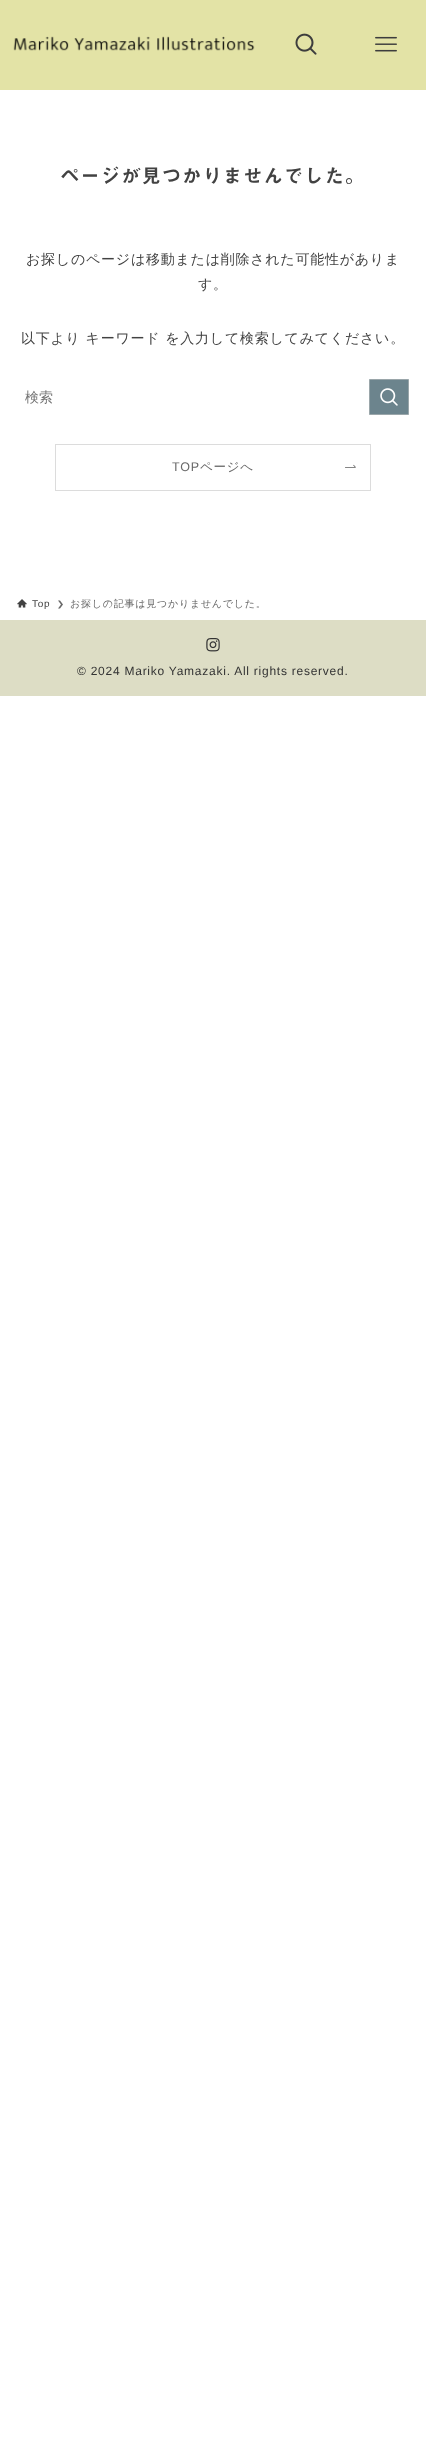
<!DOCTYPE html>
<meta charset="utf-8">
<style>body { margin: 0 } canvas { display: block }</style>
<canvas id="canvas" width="426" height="2464"></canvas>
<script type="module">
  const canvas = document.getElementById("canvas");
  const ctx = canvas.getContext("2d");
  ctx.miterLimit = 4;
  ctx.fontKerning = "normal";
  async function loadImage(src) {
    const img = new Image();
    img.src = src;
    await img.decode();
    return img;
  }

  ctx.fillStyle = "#ffffff";
  ctx.fillRect(0, 0, 426, 2464);
  ctx.fillStyle = "#e3e3a6";
  ctx.fillRect(0, 0, 426, 90);
  ctx.drawImage(await loadImage("img1.png"), 13, 36, 242, 15);
  ctx.drawImage(await loadImage("img2.png"), 295, 33, 22, 22);
  ctx.drawImage(await loadImage("img3.png"), 375, 36, 22, 16);
  ctx.letterSpacing = "0.75px";
  ctx.font = "600 19.6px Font";
  ctx.fillStyle = "#424242";
  ctx.fillText("ページが見つかりませんでした。", 60, 183);
  ctx.font = "500 14px WenQuanYi Zen Hei";
  ctx.fillText("お探しのページは移動または削除された可能性がありま", 26, 264);
  ctx.fillText("す。", 198, 289);
  ctx.fillText("以下より キーワード を入力して検索してみてください。", 21, 343);
  ctx.letterSpacing = "0px";
  ctx.fillStyle = "#757575";
  ctx.fillText("検索", 25, 402);
  ctx.fillStyle = "#6c848d";
  ctx.beginPath();
  ctx.rect(369.5, 379.5, 39, 35);
  ctx.fill();
  ctx.strokeStyle = "#9aa6aa";
  ctx.stroke();
  ctx.drawImage(await loadImage("img4.png"), 380, 388, 18, 18);
  ctx.strokeStyle = "#dcdcdc";
  ctx.strokeRect(55.5, 444.5, 315, 46);
  ctx.letterSpacing = "0.75px";
  ctx.font = "12.5px Liberation Sans";
  ctx.fillStyle = "#686868";
  ctx.fillText("TOP", 172, 471);
  ctx.font = "500 12.5px WenQuanYi Zen Hei";
  ctx.fillText("ページへ", 200, 471);
  ctx.drawImage(await loadImage("img5.png"), 345, 464, 11, 4);
  ctx.drawImage(await loadImage("img6.png"), 17, 599, 10, 9);
  ctx.font = "10px Liberation Sans";
  ctx.fillStyle = "#424242";
  ctx.fillText("Top", 32, 607);
  ctx.fillStyle = "#686868";
  ctx.beginPath();
  ctx.moveTo(60, 600.5);
  ctx.lineTo(58, 600.5);
  ctx.lineTo(61, 604.5);
  ctx.lineTo(58, 608.5);
  ctx.lineTo(60, 608.5);
  ctx.lineTo(63, 604.5);
  ctx.closePath();
  ctx.fill();
  ctx.font = "500 10px WenQuanYi Zen Hei";
  ctx.fillText("お探しの記事は見つかりませんでした。", 70, 607);
  ctx.fillStyle = "#ddddc5";
  ctx.fillRect(0, 620, 426, 76);
  ctx.drawImage(await loadImage("img7.png"), 206, 638, 14, 14);
  ctx.font = "12px Liberation Sans";
  ctx.fillStyle = "#333333";
  ctx.fillText("© 2024 Mariko Yamazaki. All rights reserved.", 77, 675);
</script>
